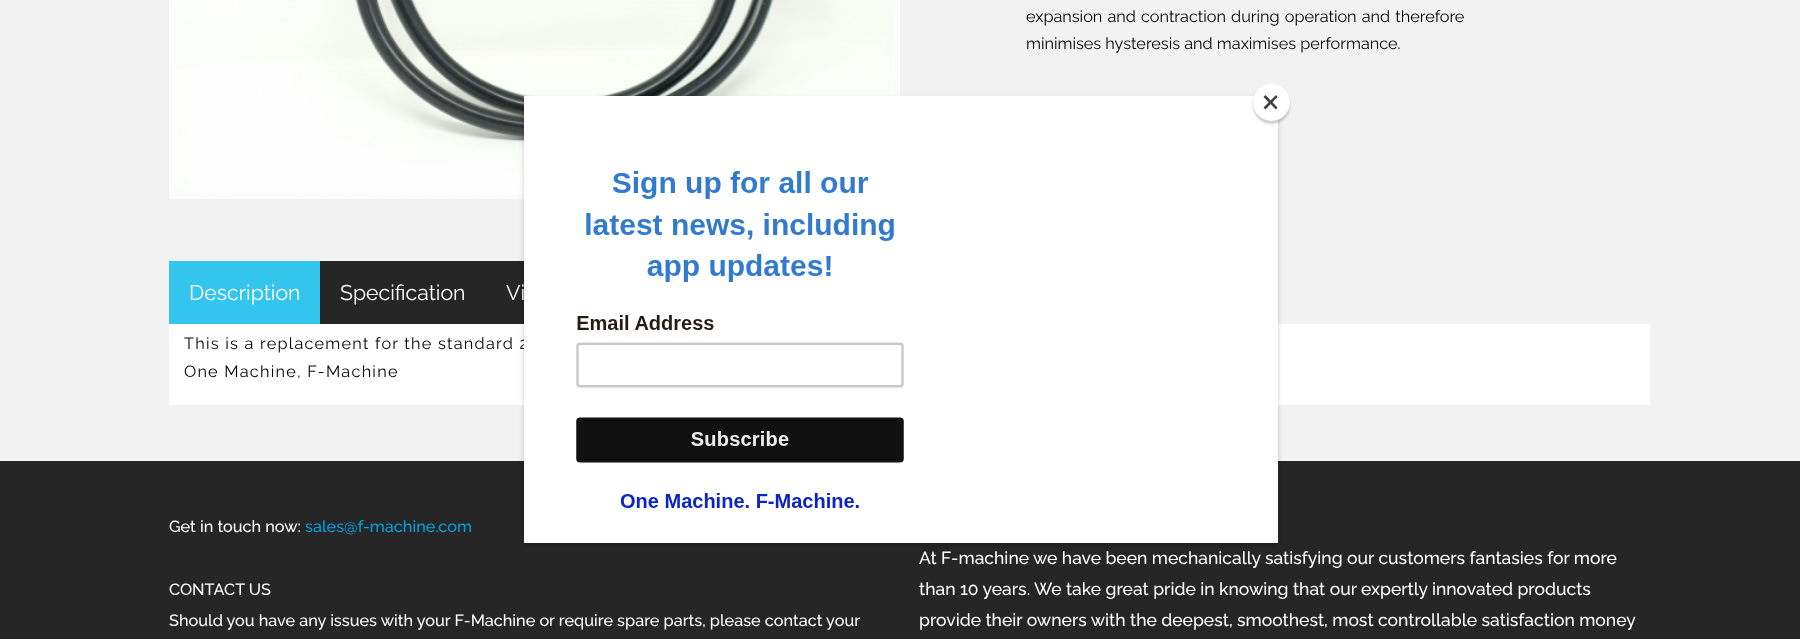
<!DOCTYPE html>
<meta charset="utf-8">
<style>body { margin: 0 } canvas { display: block }</style>
<canvas id="canvas" width="1800" height="639"></canvas>
<script type="module">
  const canvas = document.getElementById("canvas");
  const ctx = canvas.getContext("2d");
  ctx.miterLimit = 4;
  ctx.fontKerning = "normal";
  async function loadImage(src) {
    const img = new Image();
    img.src = src;
    await img.decode();
    return img;
  }

  ctx.fillStyle = "#262626";
  ctx.fillRect(0, 0, 1800, 639);
  ctx.fillStyle = "#f2f2f2";
  ctx.fillRect(0, 0, 1800, 461);
  ctx.fillStyle = "#fbfbfb";
  ctx.fillRect(169, 0, 731, 199);
  ctx.fillStyle = "#ffffff";
  ctx.fillRect(893, 0, 1, 96);
  ctx.drawImage(await loadImage("img1.png"), 175, 0, 719, 193);
  ctx.wordSpacing = "1px";
  ctx.font = "16.25px Raleway";
  ctx.fillStyle = "#000000";
  ctx.fillText("expansion and contraction during operation and therefore", 1026, 22);
  ctx.wordSpacing = "0px";
  ctx.fillText("minimises hysteresis and maximises performance.", 1026, 49);
  ctx.fillStyle = "#34c5ef";
  ctx.fillRect(169, 261, 151, 63);
  ctx.font = "21.25px Raleway";
  ctx.fillStyle = "#ffffff";
  ctx.fillText("Description", 189, 300);
  ctx.fillStyle = "#262626";
  ctx.fillRect(320, 261, 204, 63);
  ctx.fillStyle = "#ffffff";
  ctx.fillText("Specification", 340, 300);
  ctx.fillText("Vi", 506, 300);
  ctx.fillRect(169, 324, 1481, 81);
  ctx.letterSpacing = "1.25px";
  ctx.font = "16.25px Raleway";
  ctx.fillStyle = "#000000";
  ctx.fillText("This is a replacement for the standard 2", 184, 349);
  ctx.fillText("One Machine, F-Machine", 184, 377);
  ctx.letterSpacing = "0px";
  ctx.font = "500 16.25px Raleway";
  ctx.fillStyle = "#ffffff";
  ctx.fillText("Get in touch now:", 169, 532);
  ctx.fillStyle = "#00a3e3";
  ctx.fillText("sales@f-machine.com", 305, 532);
  ctx.fillStyle = "#ffffff";
  ctx.fillText("CONTACT US", 169, 595);
  ctx.fillText("Should you have any issues with your F-Machine or require spare parts, please contact your", 169, 626);
  ctx.font = "500 17.5px Raleway";
  ctx.fillText("At F-machine we have been mechanically satisfying our customers fantasies for more", 919, 564);
  ctx.fillText("than 10 years. We take great pride in knowing that our expertly innovated products", 919, 595);
  ctx.fillText("provide their owners with the deepest, smoothest, most controllable satisfaction money", 919, 626);
  ctx.fillStyle = "rgba(0, 0, 0, 0.2)";
  ctx.filter = "blur(2.5px)";
  ctx.beginPath();
  ctx.rect(524, 99, 754, 446);
  ctx.fill();
  ctx.filter = "none";
  ctx.drawImage(await loadImage("img2.png"), 524, 96, 754, 447);
  ctx.filter = "blur(1px)";
  ctx.beginPath();
  ctx.roundRect(1253, 86, 37, 38, 18.5);
  ctx.fill();
  ctx.filter = "none";
  ctx.fillStyle = "#ffffff";
  ctx.beginPath();
  ctx.arc(1271.5, 102.5, 18.5, 0, Math.PI * 2);
  ctx.fill();
  ctx.fillStyle = "#414141";
  ctx.beginPath();
  ctx.moveTo(1276, 95);
  ctx.lineTo(1277.5, 97);
  ctx.lineTo(1265.5, 109.5);
  ctx.lineTo(1263.5, 107.5);
  ctx.closePath();
  ctx.fill();
  ctx.beginPath();
  ctx.moveTo(1263.5, 97);
  ctx.lineTo(1265.5, 95);
  ctx.lineTo(1277.5, 107.5);
  ctx.lineTo(1276, 109.5);
  ctx.closePath();
  ctx.fill();
</script>
